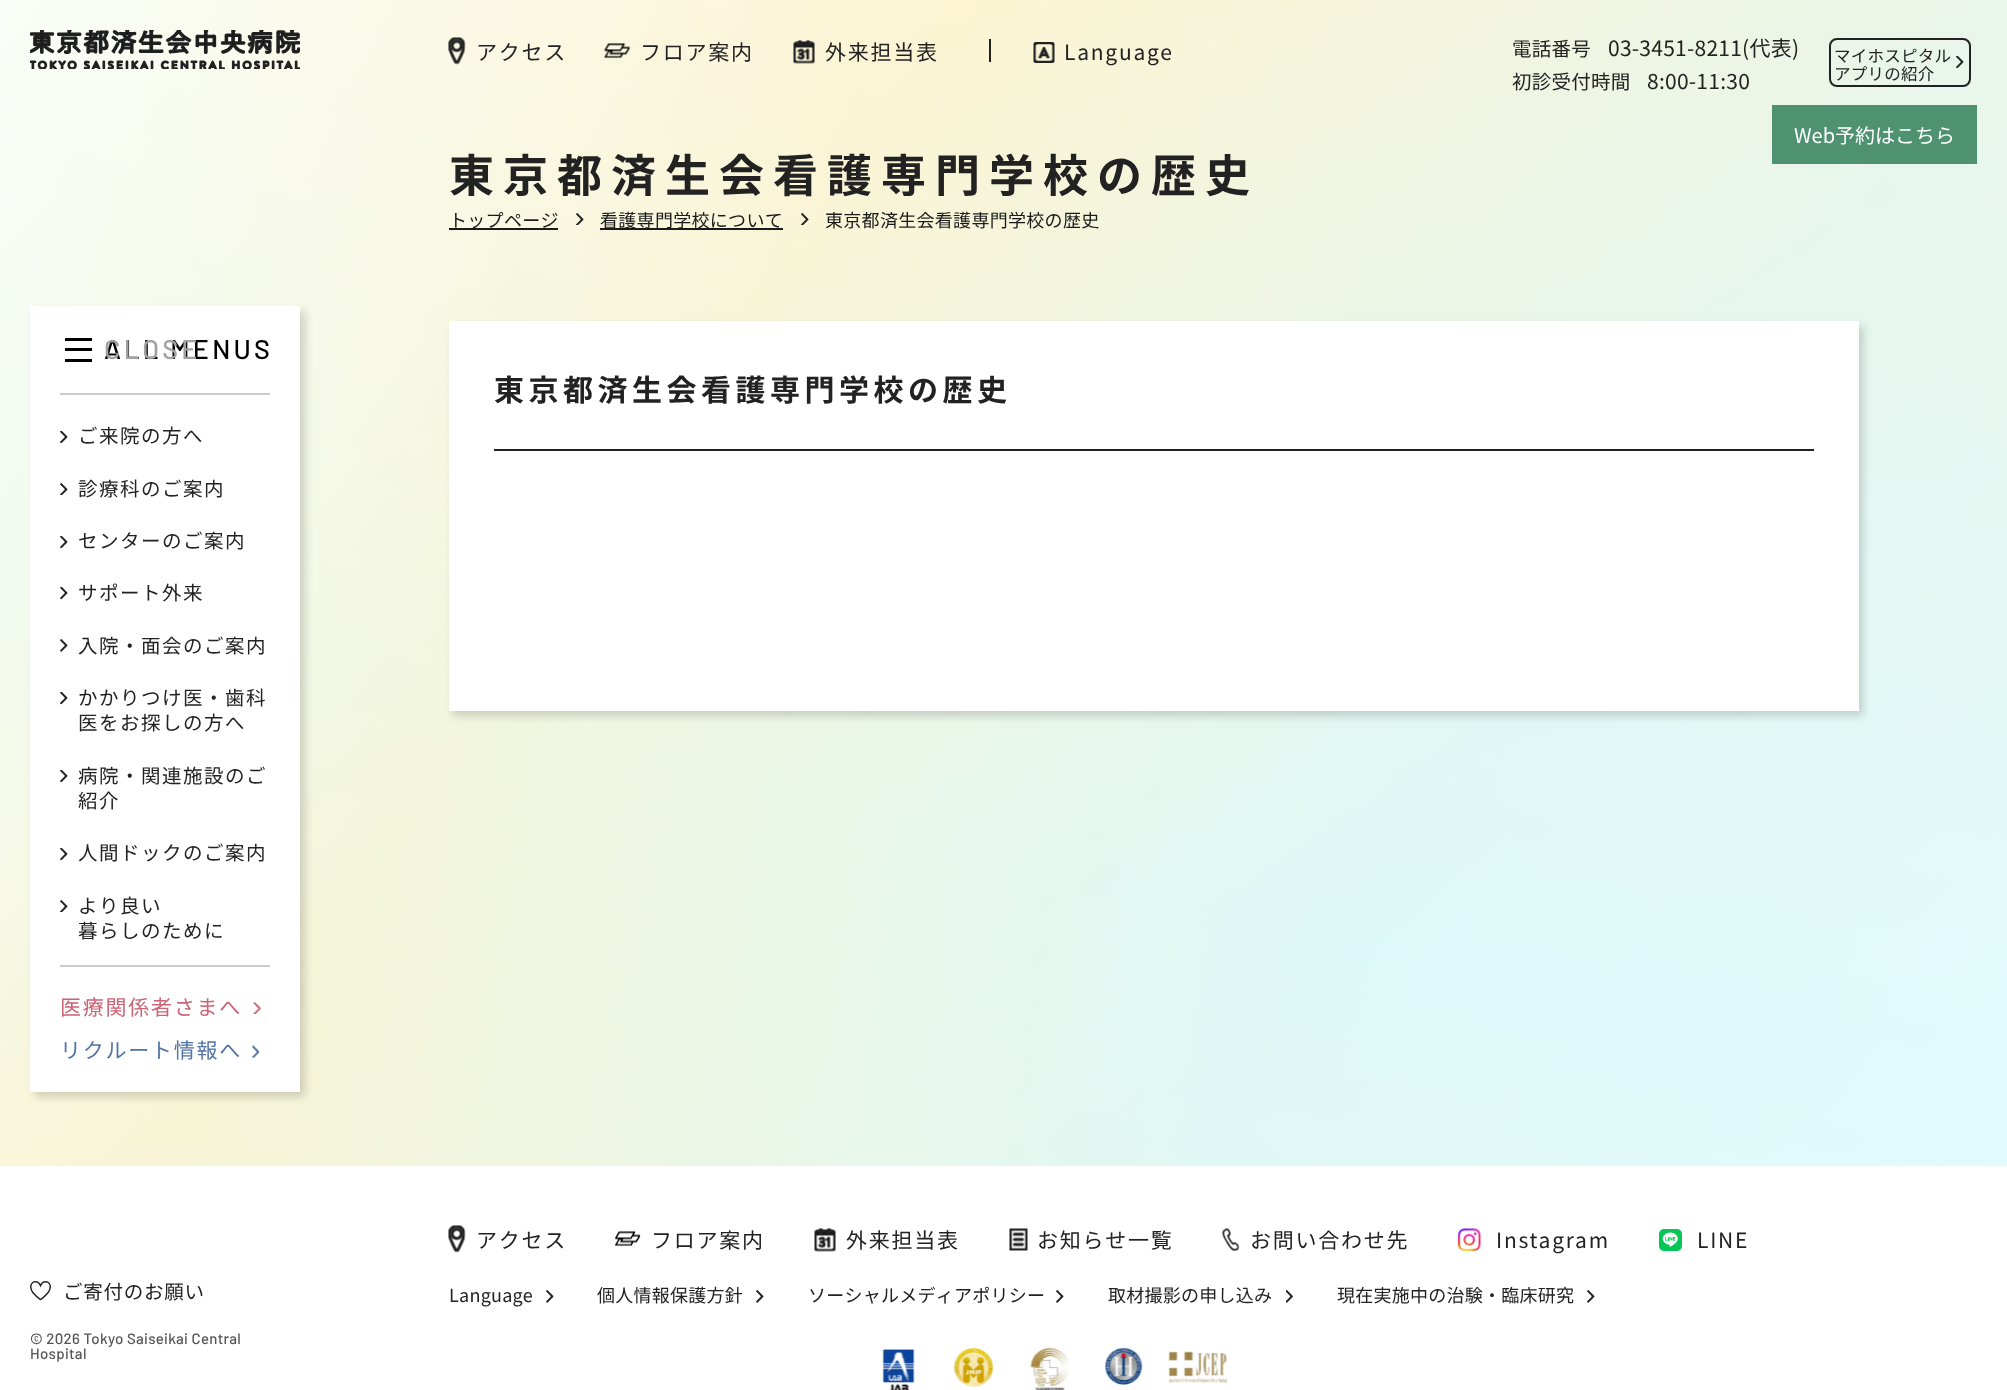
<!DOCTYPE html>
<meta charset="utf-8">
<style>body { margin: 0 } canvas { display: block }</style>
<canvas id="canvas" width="2007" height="1390"></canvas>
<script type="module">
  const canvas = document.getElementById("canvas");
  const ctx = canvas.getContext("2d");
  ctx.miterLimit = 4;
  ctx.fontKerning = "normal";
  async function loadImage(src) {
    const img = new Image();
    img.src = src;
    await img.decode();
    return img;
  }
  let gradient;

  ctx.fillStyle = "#ffffff";
  ctx.fillRect(0, 0, 2007, 1390);
  gradient = ctx.createLinearGradient(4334, 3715, -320, 457);
  gradient.addColorStop(0, "#ffffff");
  gradient.addColorStop(0.14, "#fddf9d");
  gradient.addColorStop(0.29, "#e0fffb");
  gradient.addColorStop(0.43, "#e5f2fa");
  gradient.addColorStop(0.57, "#e7fbff");
  gradient.addColorStop(0.71, "#e0f5f5");
  gradient.addColorStop(0.86, "#fff2cf");
  gradient.addColorStop(1, "#ffffff");
  ctx.fillStyle = gradient;
  ctx.fillRect(0, 0, 2007, 1166);
  gradient = ctx.createLinearGradient(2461, 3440, 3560, -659);
  gradient.addColorStop(0, "rgba(255, 255, 255, 0.3)");
  gradient.addColorStop(0.25, "rgba(255, 246, 202, 0.3)");
  gradient.addColorStop(0.5, "rgba(213, 255, 255, 0.3)");
  gradient.addColorStop(0.75, "rgba(255, 247, 210, 0.3)");
  gradient.addColorStop(1, "rgba(255, 209, 195, 0.3)");
  ctx.fillStyle = gradient;
  ctx.fillRect(0, 0, 2007, 1166);
  ctx.drawImage(await loadImage("img1.png"), 448, 37, 18, 28);
  ctx.letterSpacing = "1.75px";
  ctx.font = "21px Noto Sans JP";
  ctx.fillStyle = "#222222";
  ctx.fillText("アクセス", 476, 60);
  ctx.drawImage(await loadImage("img2.png"), 604, 43, 27, 16);
  ctx.fillText("フロア案内", 640, 60);
  ctx.drawImage(await loadImage("img3.png"), 793, 40, 22, 24);
  ctx.fillText("外来担当表", 825, 60);
  ctx.fillRect(989, 39, 2, 23);
  ctx.drawImage(await loadImage("img4.png"), 1033, 42, 22, 21);
  ctx.fillText("Language", 1064, 60);
  ctx.letterSpacing = "0.25px";
  ctx.font = "19.5px Noto Sans JP";
  ctx.fillText("電話番号", 1512, 56);
  ctx.font = "21px Noto Sans JP";
  ctx.fillText("03-3451-8211(代表)", 1608, 56);
  ctx.font = "19.5px Noto Sans JP";
  ctx.fillText("初診受付時間", 1512, 89);
  ctx.font = "21px Noto Sans JP";
  ctx.fillText("8:00-11:30", 1647, 89);
  ctx.beginPath();
  ctx.roundRect(1830, 39, 140, 47, 7);
  ctx.strokeStyle = "#222222";
  ctx.lineWidth = 2;
  ctx.stroke();
  ctx.font = "16.5px Noto Sans JP";
  ctx.fillText("マイホスピタル", 1834, 62);
  ctx.drawImage(await loadImage("img5.png"), 1956, 56, 8, 13);
  ctx.fillText("アプリの紹介", 1834, 80);
  ctx.fillStyle = "#4f9272";
  ctx.fillRect(1772, 105, 205, 59);
  ctx.letterSpacing = "0px";
  ctx.font = "20px Noto Sans JP";
  ctx.fillStyle = "#ffffff";
  ctx.fillText("Web予約はこちら", 1794, 143);
  ctx.drawImage(await loadImage("img6.png"), 30, 30, 270, 39);
  ctx.fillStyle = "rgba(0, 0, 0, 0.16)";
  ctx.filter = "blur(4.5px)";
  ctx.beginPath();
  ctx.rect(35, 311, 270, 786);
  ctx.fill();
  ctx.filter = "none";
  ctx.fillStyle = "#ffffff";
  ctx.fillRect(30, 306, 270, 786);
  ctx.fillStyle = "#000000";
  ctx.fillRect(65, 338, 27, 3);
  ctx.fillRect(65, 348, 27, 3);
  ctx.fillRect(65, 359, 27, 3);
  ctx.letterSpacing = "3.25px";
  ctx.font = "500 27px Barlow";
  ctx.fillText("ALL MENUS", 104, 359);
  ctx.fillStyle = "#a1a1a1";
  ctx.fillText("CLOSE", 104, 359);
  ctx.fillStyle = "#cccccc";
  ctx.fillRect(60, 393, 210, 2);
  ctx.drawImage(await loadImage("img7.png"), 60, 431, 8, 12);
  ctx.letterSpacing = "1.5px";
  ctx.font = "19.5px Noto Sans JP";
  ctx.fillStyle = "#222222";
  ctx.fillText("ご来院の方へ", 78, 443);
  ctx.drawImage(await loadImage("img8.png"), 60, 483, 8, 12);
  ctx.fillText("診療科のご案内", 78, 496);
  ctx.drawImage(await loadImage("img7.png"), 60, 536, 8, 12);
  ctx.fillText("センターのご案内", 78, 548);
  ctx.drawImage(await loadImage("img9.png"), 60, 587, 8, 13);
  ctx.fillText("サポート外来", 78, 600);
  ctx.drawImage(await loadImage("img10.png"), 60, 639, 8, 13);
  ctx.fillText("入院・面会のご案内", 78, 653);
  ctx.drawImage(await loadImage("img9.png"), 60, 692, 8, 13);
  ctx.fillText("かかりつけ医・歯科", 78, 705);
  ctx.fillText("医をお探しの方へ", 78, 730);
  ctx.drawImage(await loadImage("img7.png"), 60, 770, 8, 12);
  ctx.fillText("病院・関連施設のご", 78, 783);
  ctx.fillText("紹介", 78, 808);
  ctx.drawImage(await loadImage("img7.png"), 60, 848, 8, 12);
  ctx.fillText("人間ドックのご案内", 78, 860);
  ctx.drawImage(await loadImage("img8.png"), 60, 900, 8, 12);
  ctx.fillText("より良い", 78, 913);
  ctx.fillText("暮らしのために", 78, 938);
  ctx.fillStyle = "#cccccc";
  ctx.fillRect(60, 965, 210, 2);
  ctx.letterSpacing = "1.75px";
  ctx.font = "21px Noto Sans JP";
  ctx.fillStyle = "#cc6478";
  ctx.fillText("医療関係者さまへ", 60, 1015);
  ctx.drawImage(await loadImage("img11.png"), 253, 1002, 9, 12);
  ctx.fillStyle = "#5274a3";
  ctx.fillText("リクルート情報へ", 60, 1058);
  ctx.drawImage(await loadImage("img12.png"), 252, 1045, 8, 13);
  ctx.drawImage(await loadImage("img13.png"), 30, 1281, 21, 20);
  ctx.letterSpacing = "0.75px";
  ctx.font = "19.5px Noto Sans JP";
  ctx.fillStyle = "#222222";
  ctx.fillText("ご寄付のお願い", 63, 1299);
  ctx.letterSpacing = "0.3px";
  ctx.font = "500 15px Barlow";
  ctx.fillStyle = "#555555";
  ctx.fillText("© 2026 Tokyo Saiseikai Central", 30, 1344);
  ctx.fillText("Hospital", 30, 1359);
  ctx.letterSpacing = "9px";
  ctx.font = "bold 45px Noto Sans JP";
  ctx.fillStyle = "#222222";
  ctx.fillText("東京都済生会看護専門学校の歴史", 449, 192);
  ctx.fillStyle = "#1a1a1a";
  ctx.fillRect(449, 228, 109, 2);
  ctx.letterSpacing = "0.3px";
  ctx.font = "18px Noto Sans JP";
  ctx.fillText("トップページ", 449, 227);
  ctx.drawImage(await loadImage("img14.png"), 576, 213, 8, 12);
  ctx.fillRect(600, 228, 183, 2);
  ctx.fillText("看護専門学校について", 600, 227);
  ctx.drawImage(await loadImage("img15.png"), 801, 213, 8, 12);
  ctx.fillText("東京都済生会看護専門学校の歴史", 825, 227);
  ctx.fillStyle = "rgba(0, 0, 0, 0.16)";
  ctx.filter = "blur(4.5px)";
  ctx.beginPath();
  ctx.rect(453, 326, 1410, 390);
  ctx.fill();
  ctx.filter = "none";
  ctx.fillStyle = "#ffffff";
  ctx.fillRect(449, 321, 1410, 390);
  ctx.fillStyle = "#222222";
  ctx.fillRect(494, 449, 1320, 2);
  ctx.letterSpacing = "4.5px";
  ctx.font = "bold 30px Noto Sans JP";
  ctx.fillText("東京都済生会看護専門学校の歴史", 494, 401);
  ctx.drawImage(await loadImage("img16.png"), 448, 1225, 18, 28);
  ctx.letterSpacing = "1.75px";
  ctx.font = "21px Noto Sans JP";
  ctx.fillText("アクセス", 476, 1248);
  ctx.drawImage(await loadImage("img17.png"), 615, 1231, 26, 16);
  ctx.fillText("フロア案内", 651, 1248);
  ctx.drawImage(await loadImage("img18.png"), 814, 1228, 22, 24);
  ctx.fillText("外来担当表", 846, 1248);
  ctx.drawImage(await loadImage("img19.png"), 1009, 1228, 19, 23);
  ctx.fillText("お知らせ一覧", 1037, 1248);
  ctx.drawImage(await loadImage("img20.png"), 1222, 1228, 18, 23);
  ctx.fillText("お問い合わせ先", 1250, 1248);
  ctx.drawImage(await loadImage("img21.png"), 1458, 1228, 23, 23);
  ctx.fillText("Instagram", 1496, 1248);
  ctx.drawImage(await loadImage("img22.png"), 1659, 1229, 23, 22);
  ctx.fillText("LINE", 1697, 1248);
  ctx.letterSpacing = "0.25px";
  ctx.font = "18px Noto Sans JP";
  ctx.fillText("Language", 449, 1302);
  ctx.drawImage(await loadImage("img10.png"), 546, 1290, 8, 13);
  ctx.fillText("個人情報保護方針", 597, 1302);
  ctx.drawImage(await loadImage("img10.png"), 756, 1290, 8, 13);
  ctx.fillText("ソーシャルメディアポリシー", 808, 1302);
  ctx.drawImage(await loadImage("img10.png"), 1056, 1290, 8, 13);
  ctx.fillText("取材撮影の申し込み", 1108, 1302);
  ctx.drawImage(await loadImage("img23.png"), 1286, 1290, 7, 13);
  ctx.fillText("現在実施中の治験・臨床研究", 1337, 1302);
  ctx.drawImage(await loadImage("img10.png"), 1587, 1290, 8, 13);
  ctx.drawImage(await loadImage("img24.png"), 882, 1349, 33, 41);
  ctx.drawImage(await loadImage("img25.png"), 953, 1347, 41, 40);
  ctx.drawImage(await loadImage("img26.png"), 1030, 1347, 39, 43);
  ctx.drawImage(await loadImage("img27.png"), 1105, 1347, 38, 38);
  ctx.drawImage(await loadImage("img28.png"), 1168, 1351, 60, 33);
</script>
